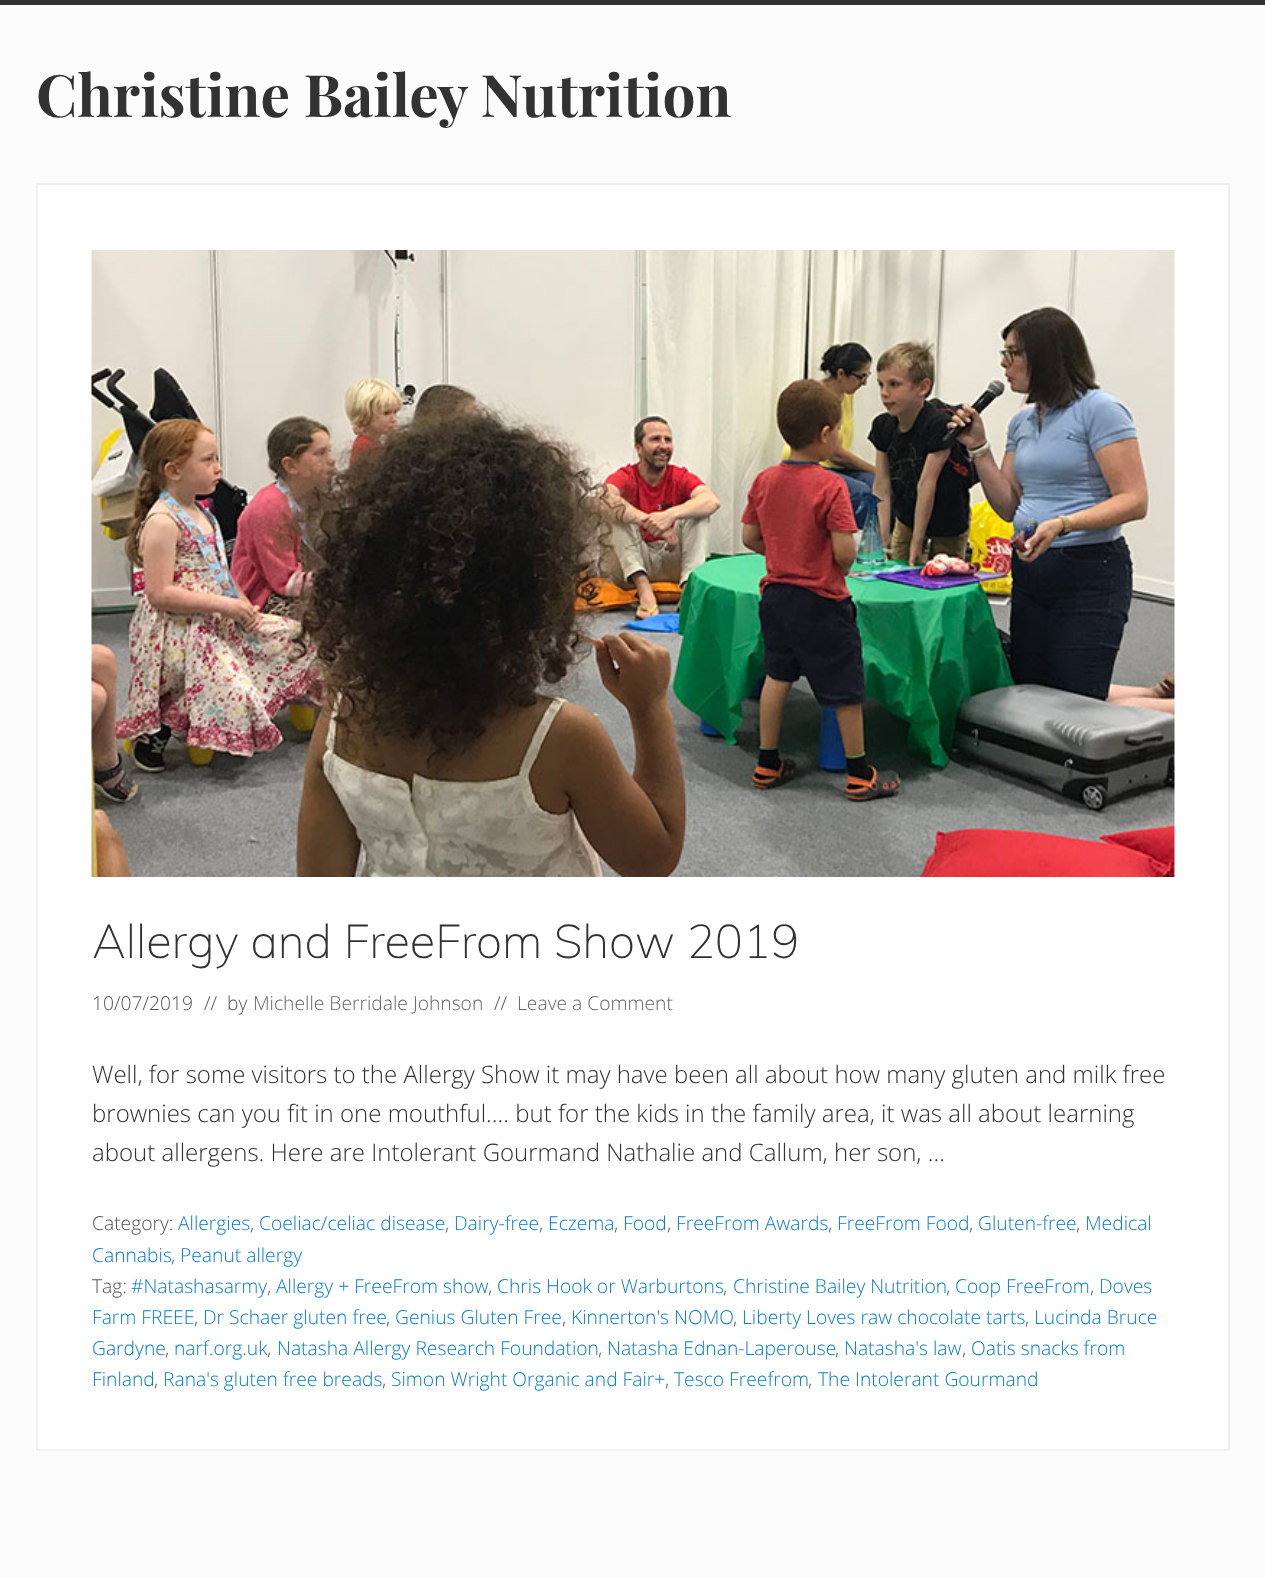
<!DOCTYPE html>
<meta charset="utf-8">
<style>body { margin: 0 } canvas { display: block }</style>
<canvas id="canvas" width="1265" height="1578"></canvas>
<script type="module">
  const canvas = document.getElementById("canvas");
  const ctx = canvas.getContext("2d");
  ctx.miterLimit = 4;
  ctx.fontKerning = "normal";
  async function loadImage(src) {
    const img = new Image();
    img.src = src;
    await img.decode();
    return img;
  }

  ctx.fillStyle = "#fcfcfc";
  ctx.fillRect(0, 0, 1265, 1578);
  ctx.fillStyle = "#323232";
  ctx.fillRect(0, 0, 1265, 5);
  ctx.font = "bold 58.5px Playfair Display";
  ctx.fillText("Christine Bailey Nutrition", 36, 117);
  ctx.fillStyle = "#ffffff";
  ctx.beginPath();
  ctx.rect(37, 184, 1192, 1266);
  ctx.fill();
  ctx.strokeStyle = "#f0f0f0";
  ctx.lineWidth = 2;
  ctx.stroke();
  ctx.drawImage(await loadImage("img1.png"), 91, 250, 1084, 627);
  ctx.font = "200 46.9px Muli";
  ctx.fillStyle = "#323232";
  ctx.fillText("Allergy and FreeFrom Show 2019", 92, 958);
  ctx.font = "300 19.25px Open Sans";
  ctx.fillStyle = "#555555";
  ctx.fillText("10/07/2019", 92, 1010);
  ctx.fillText("//  by", 204, 1010);
  ctx.fillStyle = "#666666";
  ctx.fillText("Michelle Berridale Johnson", 253, 1010);
  ctx.fillStyle = "#555555";
  ctx.fillText("//", 494, 1010);
  ctx.fillStyle = "#666666";
  ctx.fillText("Leave a Comment", 517, 1010);
  ctx.font = "300 24px Open Sans";
  ctx.fillStyle = "#323232";
  ctx.fillText("Well, for some visitors to the Allergy Show it may have been all about how many gluten and milk free", 92, 1083);
  ctx.fillText("brownies can you fit in one mouthful.... but for the kids in the family area, it was all about learning", 92, 1122);
  ctx.fillText("about allergens. Here are Intolerant Gourmand Nathalie and Callum, her son, …", 92, 1161);
  ctx.font = "300 19.25px Open Sans";
  ctx.fillStyle = "#555555";
  ctx.fillText("Category:", 92, 1230);
  ctx.fillStyle = "#067ccc";
  ctx.fillText("Allergies", 178, 1230);
  ctx.fillStyle = "#555555";
  ctx.fillText(",", 250, 1230);
  ctx.fillStyle = "#067ccc";
  ctx.fillText("Coeliac/celiac disease", 259, 1230);
  ctx.fillStyle = "#555555";
  ctx.fillText(",", 445, 1230);
  ctx.fillStyle = "#067ccc";
  ctx.fillText("Dairy-free", 454, 1230);
  ctx.fillStyle = "#555555";
  ctx.fillText(",", 539, 1230);
  ctx.fillStyle = "#067ccc";
  ctx.fillText("Eczema", 548, 1230);
  ctx.fillStyle = "#555555";
  ctx.fillText(",", 614, 1230);
  ctx.fillStyle = "#067ccc";
  ctx.fillText("Food", 623, 1230);
  ctx.fillStyle = "#555555";
  ctx.fillText(",", 667, 1230);
  ctx.fillStyle = "#067ccc";
  ctx.fillText("FreeFrom Awards", 676, 1230);
  ctx.fillStyle = "#555555";
  ctx.fillText(",", 828, 1230);
  ctx.fillStyle = "#067ccc";
  ctx.fillText("FreeFrom Food", 837, 1230);
  ctx.fillStyle = "#555555";
  ctx.fillText(",", 969, 1230);
  ctx.fillStyle = "#067ccc";
  ctx.fillText("Gluten-free", 978, 1230);
  ctx.fillStyle = "#555555";
  ctx.fillText(",", 1076, 1230);
  ctx.fillStyle = "#067ccc";
  ctx.fillText("Medical", 1085, 1230);
  ctx.fillText("Cannabis", 92, 1262);
  ctx.fillStyle = "#555555";
  ctx.fillText(",", 171, 1262);
  ctx.fillStyle = "#067ccc";
  ctx.fillText("Peanut allergy", 180, 1262);
  ctx.fillStyle = "#555555";
  ctx.fillText("Tag:", 92, 1293);
  ctx.fillStyle = "#067ccc";
  ctx.fillText("#Natashasarmy", 131, 1293);
  ctx.fillStyle = "#555555";
  ctx.fillText(",", 267, 1293);
  ctx.fillStyle = "#067ccc";
  ctx.fillText("Allergy + FreeFrom show", 276, 1293);
  ctx.fillStyle = "#555555";
  ctx.fillText(",", 488, 1293);
  ctx.fillStyle = "#067ccc";
  ctx.fillText("Chris Hook or Warburtons", 497, 1293);
  ctx.fillStyle = "#555555";
  ctx.fillText(",", 723, 1293);
  ctx.fillStyle = "#067ccc";
  ctx.fillText("Christine Bailey Nutrition", 733, 1293);
  ctx.fillStyle = "#555555";
  ctx.fillText(",", 946, 1293);
  ctx.fillStyle = "#067ccc";
  ctx.fillText("Coop FreeFrom", 955, 1293);
  ctx.fillStyle = "#555555";
  ctx.fillText(",", 1090, 1293);
  ctx.fillStyle = "#067ccc";
  ctx.fillText("Doves", 1099, 1293);
  ctx.fillText("Farm FREEE", 92, 1324);
  ctx.fillStyle = "#555555";
  ctx.fillText(",", 194, 1324);
  ctx.fillStyle = "#067ccc";
  ctx.fillText("Dr Schaer gluten free", 203, 1324);
  ctx.fillStyle = "#555555";
  ctx.fillText(",", 386, 1324);
  ctx.fillStyle = "#067ccc";
  ctx.fillText("Genius Gluten Free", 395, 1324);
  ctx.fillStyle = "#555555";
  ctx.fillText(",", 562, 1324);
  ctx.fillStyle = "#067ccc";
  ctx.fillText("Kinnerton's NOMO", 571, 1324);
  ctx.fillStyle = "#555555";
  ctx.fillText(",", 733, 1324);
  ctx.fillStyle = "#067ccc";
  ctx.fillText("Liberty Loves raw chocolate tarts", 742, 1324);
  ctx.fillStyle = "#555555";
  ctx.fillText(",", 1025, 1324);
  ctx.fillStyle = "#067ccc";
  ctx.fillText("Lucinda Bruce", 1034, 1324);
  ctx.fillText("Gardyne", 92, 1355);
  ctx.fillStyle = "#555555";
  ctx.fillText(",", 165, 1355);
  ctx.fillStyle = "#067ccc";
  ctx.fillText("narf.org.uk", 174, 1355);
  ctx.fillStyle = "#555555";
  ctx.fillText(",", 267, 1355);
  ctx.fillStyle = "#067ccc";
  ctx.fillText("Natasha Allergy Research Foundation", 277, 1355);
  ctx.fillStyle = "#555555";
  ctx.fillText(",", 598, 1355);
  ctx.fillStyle = "#067ccc";
  ctx.fillText("Natasha Ednan-Laperouse", 607, 1355);
  ctx.fillStyle = "#555555";
  ctx.fillText(",", 835, 1355);
  ctx.fillStyle = "#067ccc";
  ctx.fillText("Natasha's law", 844, 1355);
  ctx.fillStyle = "#555555";
  ctx.fillText(",", 962, 1355);
  ctx.fillStyle = "#067ccc";
  ctx.fillText("Oatis snacks from", 971, 1355);
  ctx.fillText("Finland", 92, 1386);
  ctx.fillStyle = "#555555";
  ctx.fillText(",", 154, 1386);
  ctx.fillStyle = "#067ccc";
  ctx.fillText("Rana's gluten free breads", 163, 1386);
  ctx.fillStyle = "#555555";
  ctx.fillText(",", 382, 1386);
  ctx.fillStyle = "#067ccc";
  ctx.fillText("Simon Wright Organic and Fair+", 391, 1386);
  ctx.fillStyle = "#555555";
  ctx.fillText(",", 665, 1386);
  ctx.fillStyle = "#067ccc";
  ctx.fillText("Tesco Freefrom", 674, 1386);
  ctx.fillStyle = "#555555";
  ctx.fillText(",", 808, 1386);
  ctx.fillStyle = "#067ccc";
  ctx.fillText("The Intolerant Gourmand", 818, 1386);
</script>
